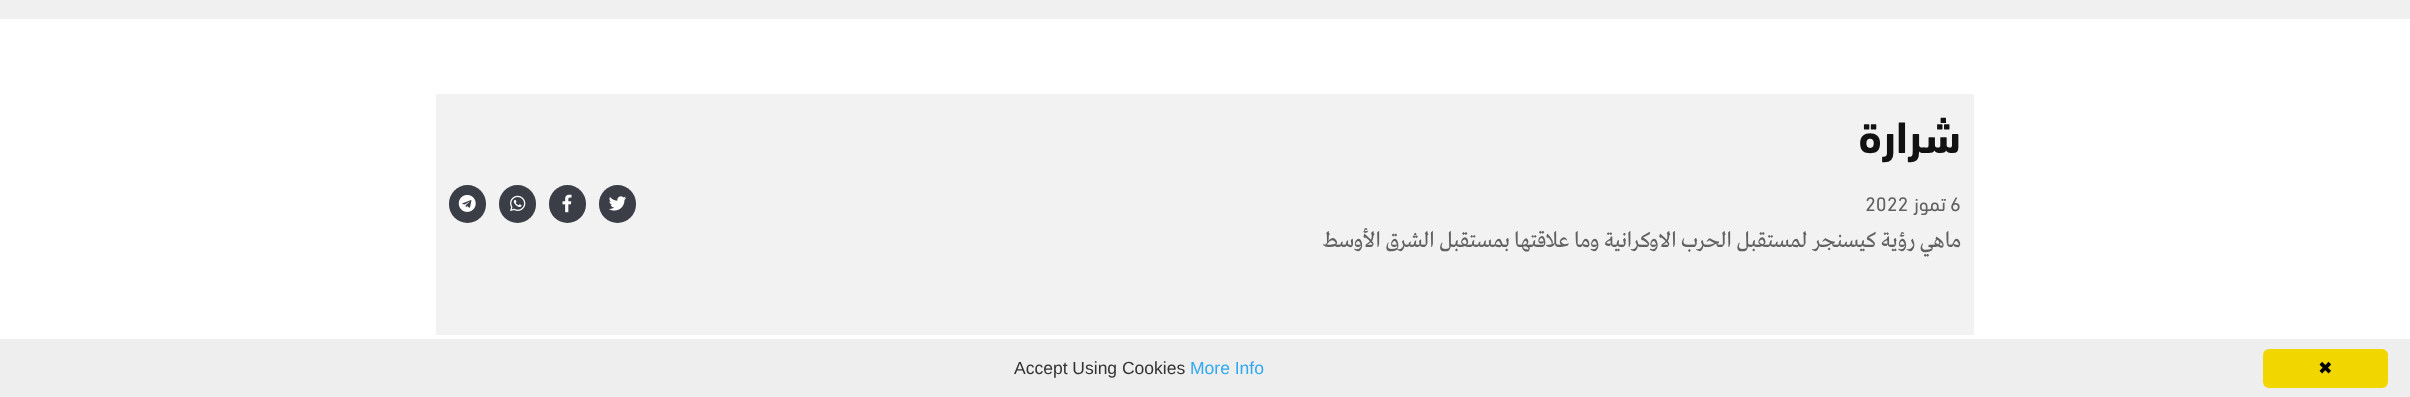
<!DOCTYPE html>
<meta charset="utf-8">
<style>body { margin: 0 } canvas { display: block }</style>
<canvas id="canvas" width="2410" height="397"></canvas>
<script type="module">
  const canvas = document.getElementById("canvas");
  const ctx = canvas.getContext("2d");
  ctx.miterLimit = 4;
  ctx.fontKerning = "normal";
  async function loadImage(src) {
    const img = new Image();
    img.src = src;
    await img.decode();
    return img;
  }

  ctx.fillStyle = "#ffffff";
  ctx.fillRect(0, 0, 2410, 397);
  ctx.fillStyle = "#f0f0f0";
  ctx.fillRect(0, 0, 2410, 19);
  ctx.fillStyle = "#f2f2f2";
  ctx.fillRect(436, 94, 1538, 241);
  ctx.direction = "rtl";
  ctx.font = "bold 45px 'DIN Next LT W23'";
  ctx.fillStyle = "#121213";
  ctx.fillText("شرارة", 1961, 153);
  ctx.direction = "ltr";
  ctx.font = "20px 'DIN Next LT W23'";
  ctx.fillStyle = "#616161";
  ctx.fillText("6", 1950, 211);
  ctx.direction = "rtl";
  ctx.fillText("تموز", 1946, 211);
  ctx.direction = "ltr";
  ctx.fillText("2022", 1865, 211);
  ctx.fillStyle = "#3c3e47";
  ctx.beginPath();
  ctx.roundRect(599, 185, 37, 38, 18.5);
  ctx.fill();
  ctx.drawImage(await loadImage("img1.png"), 609, 196, 18, 15);
  ctx.beginPath();
  ctx.roundRect(549, 185, 37, 38, 18.5);
  ctx.fill();
  ctx.drawImage(await loadImage("img2.png"), 562, 194, 10, 19);
  ctx.beginPath();
  ctx.roundRect(499, 185, 37, 38, 18.5);
  ctx.fill();
  ctx.drawImage(await loadImage("img3.png"), 510, 195, 16, 16);
  ctx.beginPath();
  ctx.roundRect(449, 185, 37, 38, 18.5);
  ctx.fill();
  ctx.drawImage(await loadImage("img4.png"), 458, 195, 18, 17);
  ctx.direction = "rtl";
  ctx.font = "22.5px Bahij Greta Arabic";
  ctx.fillStyle = "#616161";
  ctx.fillText("ماهي رؤية كيسنجر لمستقبل الحرب الاوكرانية وما علاقتها بمستقبل الشرق الأوسط", 1961, 247);
  ctx.fillStyle = "#eeeeee";
  ctx.fillRect(0, 339, 2410, 58);
  ctx.fillStyle = "#f1d600";
  ctx.beginPath();
  ctx.roundRect(2263, 349, 125, 39, 6);
  ctx.fill();
  ctx.direction = "ltr";
  ctx.font = "17.5px DejaVu Sans";
  ctx.fillStyle = "#000000";
  ctx.fillText("✖", 2318, 374);
  ctx.font = "17.5px Liberation Sans";
  ctx.fillStyle = "#31a8f0";
  ctx.fillText("More Info", 1190, 374);
  ctx.fillStyle = "#333333";
  ctx.fillText("Accept Using Cookies", 1014, 374);
</script>
